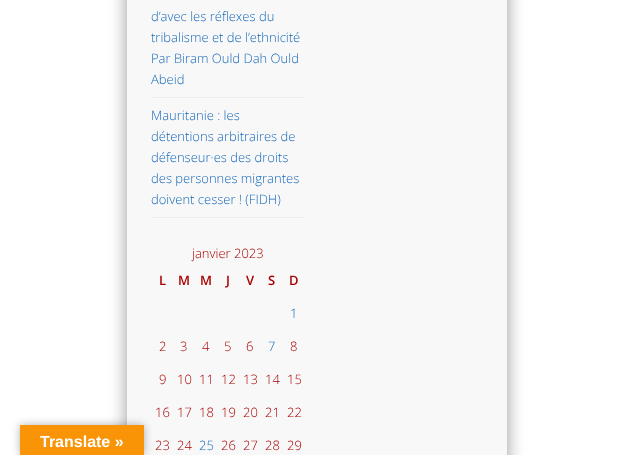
<!DOCTYPE html>
<meta charset="utf-8">
<style>body { margin: 0 } canvas { display: block }</style>
<canvas id="canvas" width="634" height="455"></canvas>
<script type="module">
  const canvas = document.getElementById("canvas");
  const ctx = canvas.getContext("2d");
  ctx.miterLimit = 4;
  ctx.fontKerning = "normal";

  ctx.fillStyle = "#ffffff";
  ctx.fillRect(0, 0, 634, 455);
  ctx.fillStyle = "rgba(0, 0, 0, 0.4)";
  ctx.filter = "blur(9px)";
  ctx.beginPath();
  ctx.rect(127, -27, 380, 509);
  ctx.fill();
  ctx.filter = "none";
  ctx.fillStyle = "#f8f8f8";
  ctx.fillRect(127, 0, 380, 455);
  ctx.fillStyle = "rgba(0, 0, 0, 0.3)";
  ctx.filter = "blur(4.5px)";
  ctx.beginPath();
  ctx.rect(20, 425, 124, 30);
  ctx.fill();
  ctx.filter = "none";
  ctx.fillStyle = "#f89406";
  ctx.fillRect(20, 425, 124, 30);
  ctx.font = "bold 16px Liberation Sans";
  ctx.fillStyle = "#ffffff";
  ctx.fillText("Translate »", 40, 447);
  ctx.fillStyle = "#eeeeee";
  ctx.fillRect(151, 97, 154, 1);
  ctx.font = "300 13px Open Sans";
  ctx.fillStyle = "#1668ba";
  ctx.fillText("d’avec les réflexes du", 151, 21);
  ctx.fillText("tribalisme et de l’ethnicité", 151, 42);
  ctx.fillText("Par Biram Ould Dah Ould", 151, 63);
  ctx.fillText("Abeid", 151, 84);
  ctx.fillStyle = "#eeeeee";
  ctx.fillRect(151, 217, 154, 1);
  ctx.fillStyle = "#1668ba";
  ctx.fillText("Mauritanie : les", 151, 120);
  ctx.fillText("détentions arbitraires de", 151, 141);
  ctx.fillText("défenseur·es des droits", 151, 162);
  ctx.fillText("des personnes migrantes", 151, 183);
  ctx.fillText("doivent cesser ! (FIDH)", 151, 204);
  ctx.fillStyle = "#a80000";
  ctx.fillText("janvier 2023", 192, 258);
  ctx.font = "600 13px Open Sans";
  ctx.fillText("L", 159, 285);
  ctx.fillText("M", 178, 285);
  ctx.fillText("M", 200, 285);
  ctx.fillText("J", 226, 285);
  ctx.fillText("V", 246, 285);
  ctx.fillText("S", 268, 285);
  ctx.fillText("D", 289, 285);
  ctx.font = "300 13px Open Sans";
  ctx.fillStyle = "#1668ba";
  ctx.fillText("1", 290, 318);
  ctx.fillStyle = "#a80000";
  ctx.fillText("2", 159, 351);
  ctx.fillText("3", 180, 351);
  ctx.fillText("4", 202, 351);
  ctx.fillText("5", 224, 351);
  ctx.fillText("6", 246, 351);
  ctx.fillStyle = "#1668ba";
  ctx.fillText("7", 268, 351);
  ctx.fillStyle = "#a80000";
  ctx.fillText("8", 290, 351);
  ctx.fillText("9", 159, 384);
  ctx.fillText("10", 177, 384);
  ctx.fillText("11", 199, 384);
  ctx.fillText("12", 221, 384);
  ctx.fillText("13", 243, 384);
  ctx.fillText("14", 265, 384);
  ctx.fillText("15", 287, 384);
  ctx.fillText("16", 155, 417);
  ctx.fillText("17", 177, 417);
  ctx.fillText("18", 199, 417);
  ctx.fillText("19", 221, 417);
  ctx.fillText("20", 243, 417);
  ctx.fillText("21", 265, 417);
  ctx.fillText("22", 287, 417);
  ctx.fillText("23", 155, 450);
  ctx.fillText("24", 177, 450);
  ctx.fillStyle = "#1668ba";
  ctx.fillText("25", 199, 450);
  ctx.fillStyle = "#a80000";
  ctx.fillText("26", 221, 450);
  ctx.fillText("27", 243, 450);
  ctx.fillText("28", 265, 450);
  ctx.fillText("29", 287, 450);
</script>
